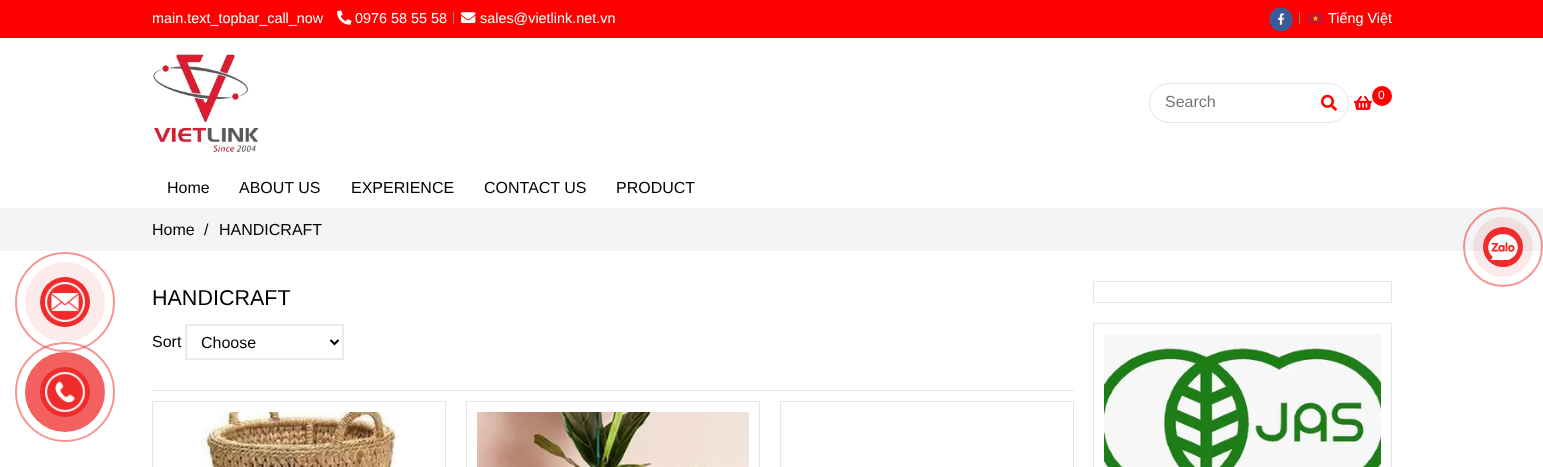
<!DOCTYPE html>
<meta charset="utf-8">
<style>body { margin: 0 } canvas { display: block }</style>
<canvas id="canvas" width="1543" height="467"></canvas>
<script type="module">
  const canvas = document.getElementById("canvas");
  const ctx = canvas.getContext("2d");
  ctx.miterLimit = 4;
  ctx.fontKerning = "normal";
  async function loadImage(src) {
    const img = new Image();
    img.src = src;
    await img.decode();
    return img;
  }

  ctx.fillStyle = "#ffffff";
  ctx.fillRect(0, 0, 1543, 467);
  ctx.fillStyle = "#ff0000";
  ctx.fillRect(0, 0, 1543, 37);
  ctx.fillStyle = "#eb0000";
  ctx.fillRect(0, 37, 1543, 1);
  ctx.font = "14.4px Liberation Sans";
  ctx.fillStyle = "#ffffff";
  ctx.fillText("main.text_topbar_call_now", 152, 23);
  ctx.drawImage(await loadImage("img1.png"), 337, 10, 15, 15);
  ctx.fillText("0976 58 55 58", 355, 23);
  ctx.fillStyle = "#828686";
  ctx.fillRect(453, 12, 1, 12);
  ctx.drawImage(await loadImage("img2.png"), 461, 12, 15, 11);
  ctx.fillStyle = "#ffffff";
  ctx.fillText("sales@vietlink.net.vn", 480, 23);
  ctx.drawImage(await loadImage("img3.png"), 1269, 7, 24, 25);
  ctx.fillStyle = "#828686";
  ctx.fillRect(1299, 12, 1, 12);
  ctx.drawImage(await loadImage("img4.png"), 1307, 13, 17, 11);
  ctx.fillStyle = "#ffffff";
  ctx.fillText("Tiếng Việt", 1328, 23);
  ctx.drawImage(await loadImage("img5.png"), 153, 54, 106, 99);
  ctx.beginPath();
  ctx.roundRect(1149.5, 83.5, 199, 39, 19.5);
  ctx.strokeStyle = "#e5e5e5";
  ctx.stroke();
  ctx.font = "16px Liberation Sans";
  ctx.fillStyle = "#757575";
  ctx.fillText("Search", 1165, 107);
  ctx.drawImage(await loadImage("img6.png"), 1321, 94, 16, 17);
  ctx.drawImage(await loadImage("img7.png"), 1354, 95, 18, 15);
  ctx.fillStyle = "#ff0000";
  ctx.beginPath();
  ctx.arc(1382, 96, 10, 0, Math.PI * 2);
  ctx.fill();
  ctx.font = "12px Liberation Sans";
  ctx.fillStyle = "#ffffff";
  ctx.fillText("0", 1378, 99);
  ctx.font = "16px Liberation Sans";
  ctx.fillStyle = "#000000";
  ctx.fillText("Home", 167, 193);
  ctx.fillText("ABOUT US", 239, 193);
  ctx.fillText("EXPERIENCE", 351, 193);
  ctx.fillText("CONTACT US", 484, 193);
  ctx.fillText("PRODUCT", 616, 193);
  ctx.beginPath();
  ctx.arc(65, 392, 49, 0, Math.PI * 2);
  ctx.strokeStyle = "#f79595";
  ctx.lineWidth = 2;
  ctx.stroke();
  ctx.beginPath();
  ctx.arc(65, 302, 49, 0, Math.PI * 2);
  ctx.strokeStyle = "rgba(239, 43, 43, 0.5)";
  ctx.stroke();
  ctx.fillStyle = "#fdeaea";
  ctx.beginPath();
  ctx.arc(65, 302, 40, 0, Math.PI * 2);
  ctx.fill();
  ctx.fillStyle = "#ef2b2b";
  ctx.beginPath();
  ctx.arc(65, 302, 25, 0, Math.PI * 2);
  ctx.fill();
  ctx.drawImage(await loadImage("img8.png"), 45, 282, 40, 40);
  ctx.fillStyle = "#f2f4f5";
  ctx.fillRect(0, 208, 1543, 43);
  ctx.beginPath();
  ctx.arc(1503, 247, 39, 0, Math.PI * 2);
  ctx.stroke();
  ctx.fillStyle = "rgba(239, 43, 43, 0.1)";
  ctx.beginPath();
  ctx.arc(1503, 247, 30, 0, Math.PI * 2);
  ctx.fill();
  ctx.fillStyle = "#ef2b2b";
  ctx.beginPath();
  ctx.arc(1503, 247, 20, 0, Math.PI * 2);
  ctx.fill();
  ctx.drawImage(await loadImage("img9.png"), 1488, 234, 30, 26);
  ctx.fillStyle = "#f36060";
  ctx.beginPath();
  ctx.arc(65, 392, 40, 0, Math.PI * 2);
  ctx.fill();
  ctx.fillStyle = "#ef2b2b";
  ctx.beginPath();
  ctx.arc(65, 392, 25, 0, Math.PI * 2);
  ctx.fill();
  ctx.drawImage(await loadImage("img10.png"), 45, 372, 40, 40);
  ctx.fillStyle = "#000000";
  ctx.fillText("Home", 152, 235);
  ctx.fillText("/", 204, 235);
  ctx.fillText("HANDICRAFT", 219, 235);
  ctx.font = "21.5px Liberation Sans";
  ctx.fillText("HANDICRAFT", 152, 305);
  ctx.font = "16px Liberation Sans";
  ctx.fillText("Sort", 152, 347);
  ctx.strokeStyle = "#ebebeb";
  ctx.strokeRect(186, 325, 157, 34);
  ctx.beginPath();
  ctx.moveTo(330.5, 340);
  ctx.lineTo(334.5, 344);
  ctx.lineTo(338.5, 340);
  ctx.strokeStyle = "#000000";
  ctx.stroke();
  ctx.fillText("Choose", 201, 348);
  ctx.fillStyle = "#e6e6e6";
  ctx.fillRect(152, 390, 922, 1);
  ctx.strokeStyle = "#e2e6e7";
  ctx.lineWidth = 1;
  ctx.strokeRect(152.5, 401.5, 293, 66);
  ctx.drawImage(await loadImage("img11.png"), 201, 412, 198, 55);
  ctx.strokeRect(466.5, 401.5, 293, 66);
  ctx.drawImage(await loadImage("img12.png"), 477, 412, 272, 55);
  ctx.strokeRect(780.5, 401.5, 293, 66);
  ctx.strokeRect(1093.5, 281.5, 298, 21);
  ctx.strokeRect(1093.5, 323.5, 298, 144);
  ctx.drawImage(await loadImage("img13.png"), 1104, 334, 277, 133);
</script>
